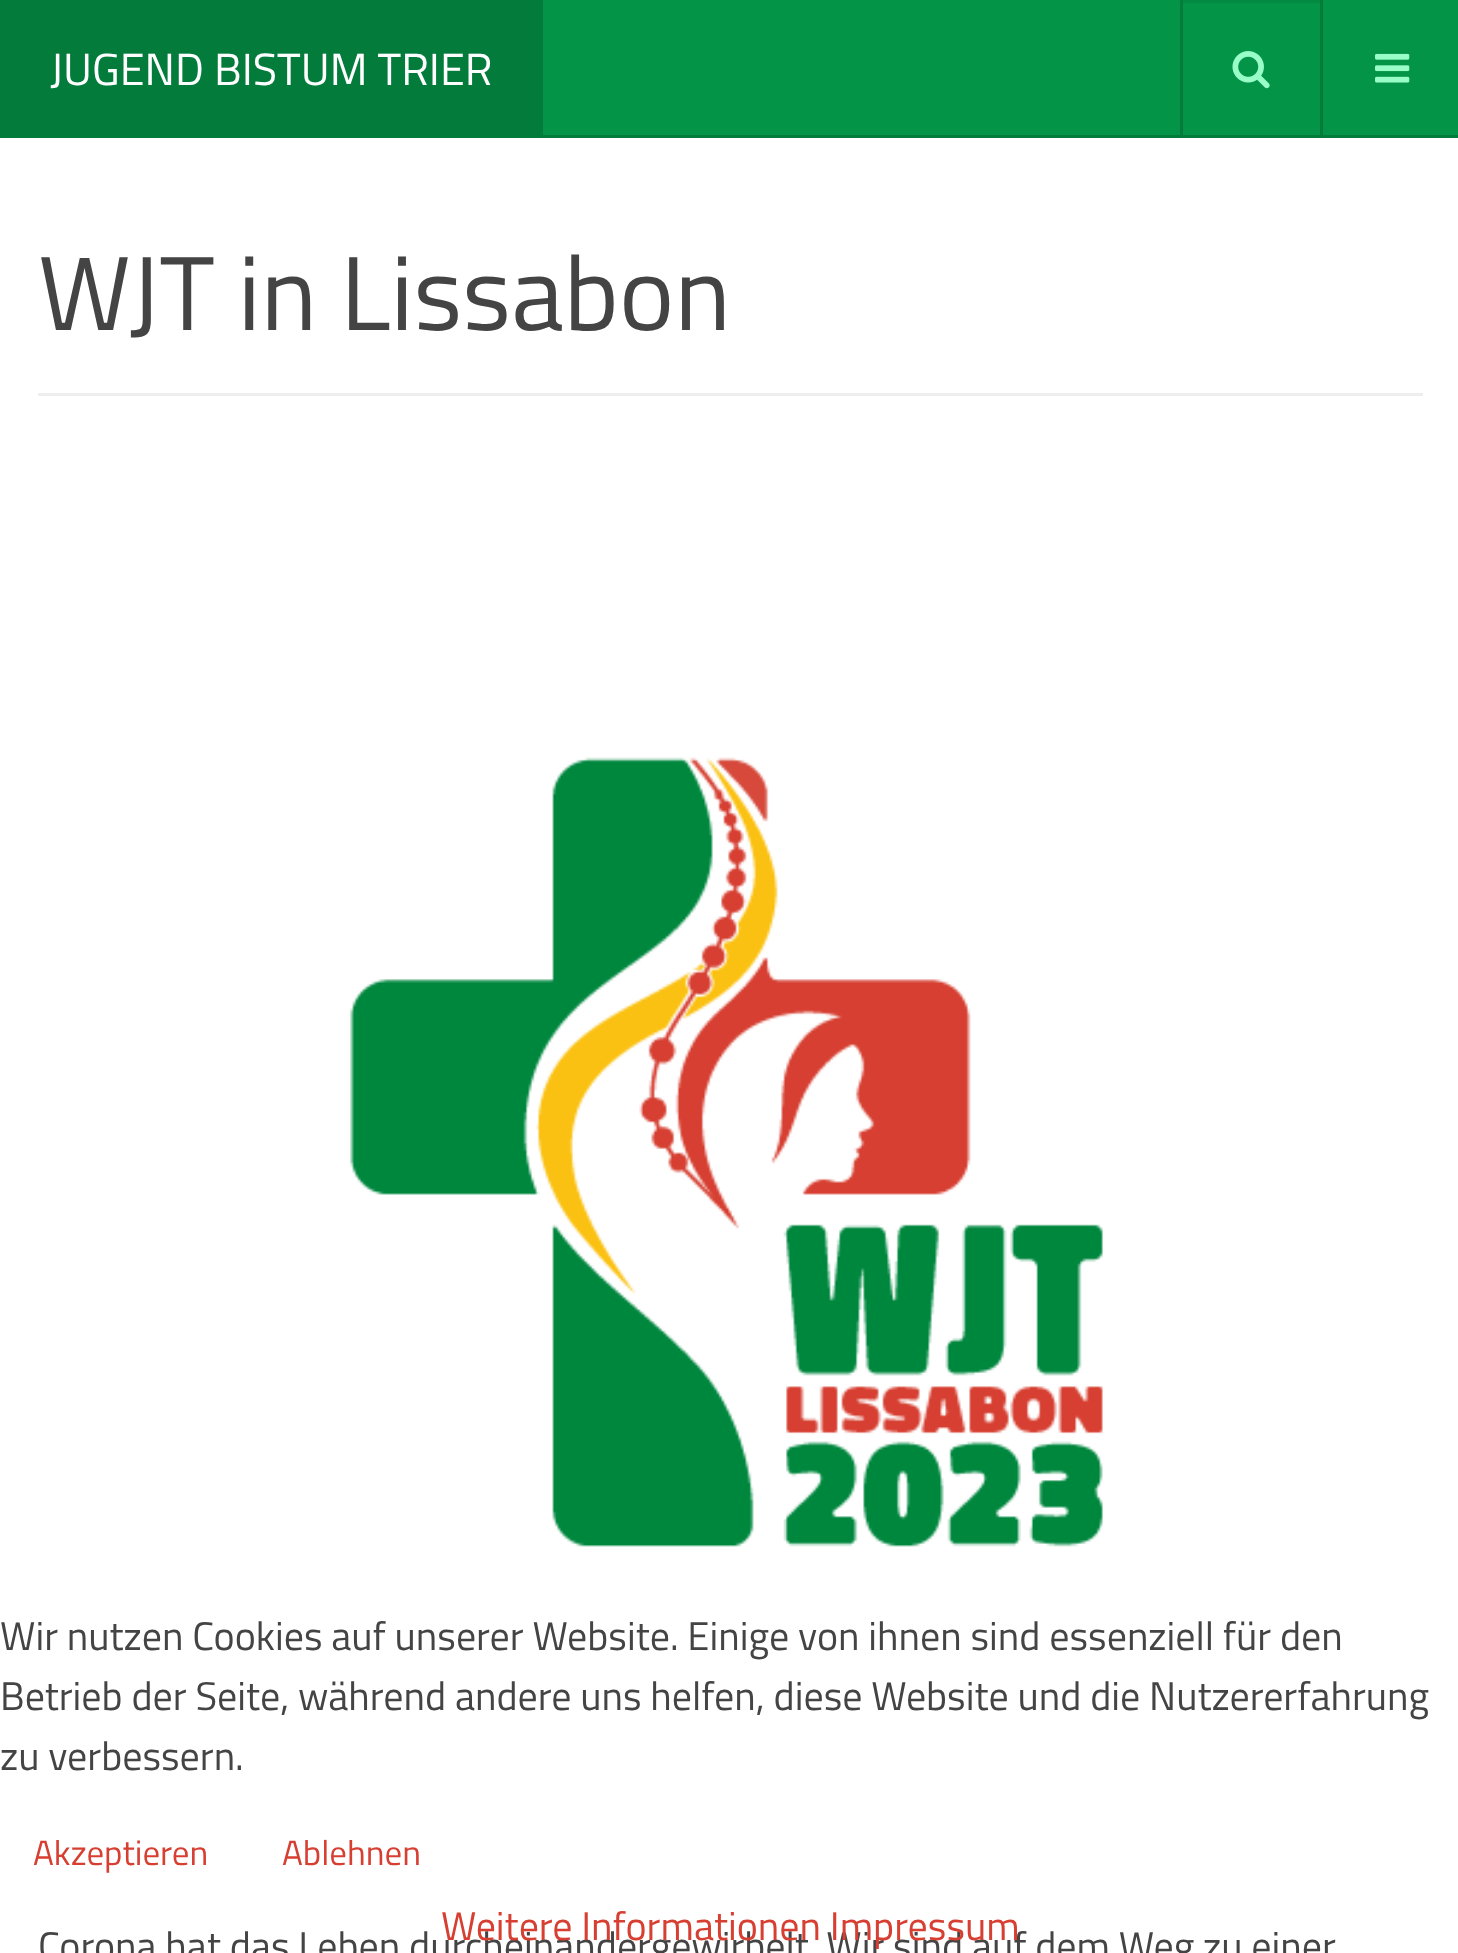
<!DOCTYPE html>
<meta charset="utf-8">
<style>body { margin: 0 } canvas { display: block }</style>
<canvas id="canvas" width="1458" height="1953"></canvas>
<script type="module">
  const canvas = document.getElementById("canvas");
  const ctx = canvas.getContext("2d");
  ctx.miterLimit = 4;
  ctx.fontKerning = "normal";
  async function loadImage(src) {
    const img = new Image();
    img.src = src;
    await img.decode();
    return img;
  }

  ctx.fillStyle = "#ffffff";
  ctx.fillRect(0, 0, 1458, 1953);
  ctx.fillStyle = "#039447";
  ctx.fillRect(543, 0, 915, 135);
  ctx.fillStyle = "#027b3b";
  ctx.fillRect(543, 135, 915, 3);
  ctx.fillRect(0, 0, 543, 138);
  ctx.font = "45px Titillium Web";
  ctx.fillStyle = "#ffffff";
  ctx.fillText("JUGEND BISTUM TRIER", 50, 85);
  ctx.fillStyle = "#027b3b";
  ctx.fillRect(1320, 0, 3, 135);
  ctx.fillRect(1180, 0, 3, 135);
  ctx.fillStyle = "#038942";
  ctx.fillRect(1183, 0, 137, 3);
  ctx.drawImage(await loadImage("img1.png"), 1232, 51, 38, 38);
  ctx.drawImage(await loadImage("img2.png"), 1375, 53, 35, 30);
  ctx.fillStyle = "#eeeeee";
  ctx.fillRect(38, 393, 1385, 3);
  ctx.font = "105px Titillium Web";
  ctx.fillStyle = "#444444";
  ctx.fillText("WJT in Lissabon", 38, 330);
  ctx.drawImage(await loadImage("img3.png"), 350, 757, 753, 790);
  ctx.font = "40px Titillium Web";
  ctx.fillText("Corona hat das Leben durcheinandergewirbelt. Wir sind auf dem Weg zu einer", 38, 1960);
  ctx.fillText("Wir nutzen Cookies auf unserer Website. Einige von ihnen sind essenziell für den", 0, 1650);
  ctx.fillText("Betrieb der Seite, während andere uns helfen, diese Website und die Nutzererfahrung", 0, 1710);
  ctx.fillText("zu verbessern.", 0, 1770);
  ctx.font = "35px Titillium Web";
  ctx.fillStyle = "#d63f31";
  ctx.fillText("Akzeptieren", 33, 1865);
  ctx.fillText("Ablehnen", 282, 1865);
  ctx.font = "40px Titillium Web";
  ctx.fillText("Weitere Informationen Impressum", 441, 1940);
</script>
